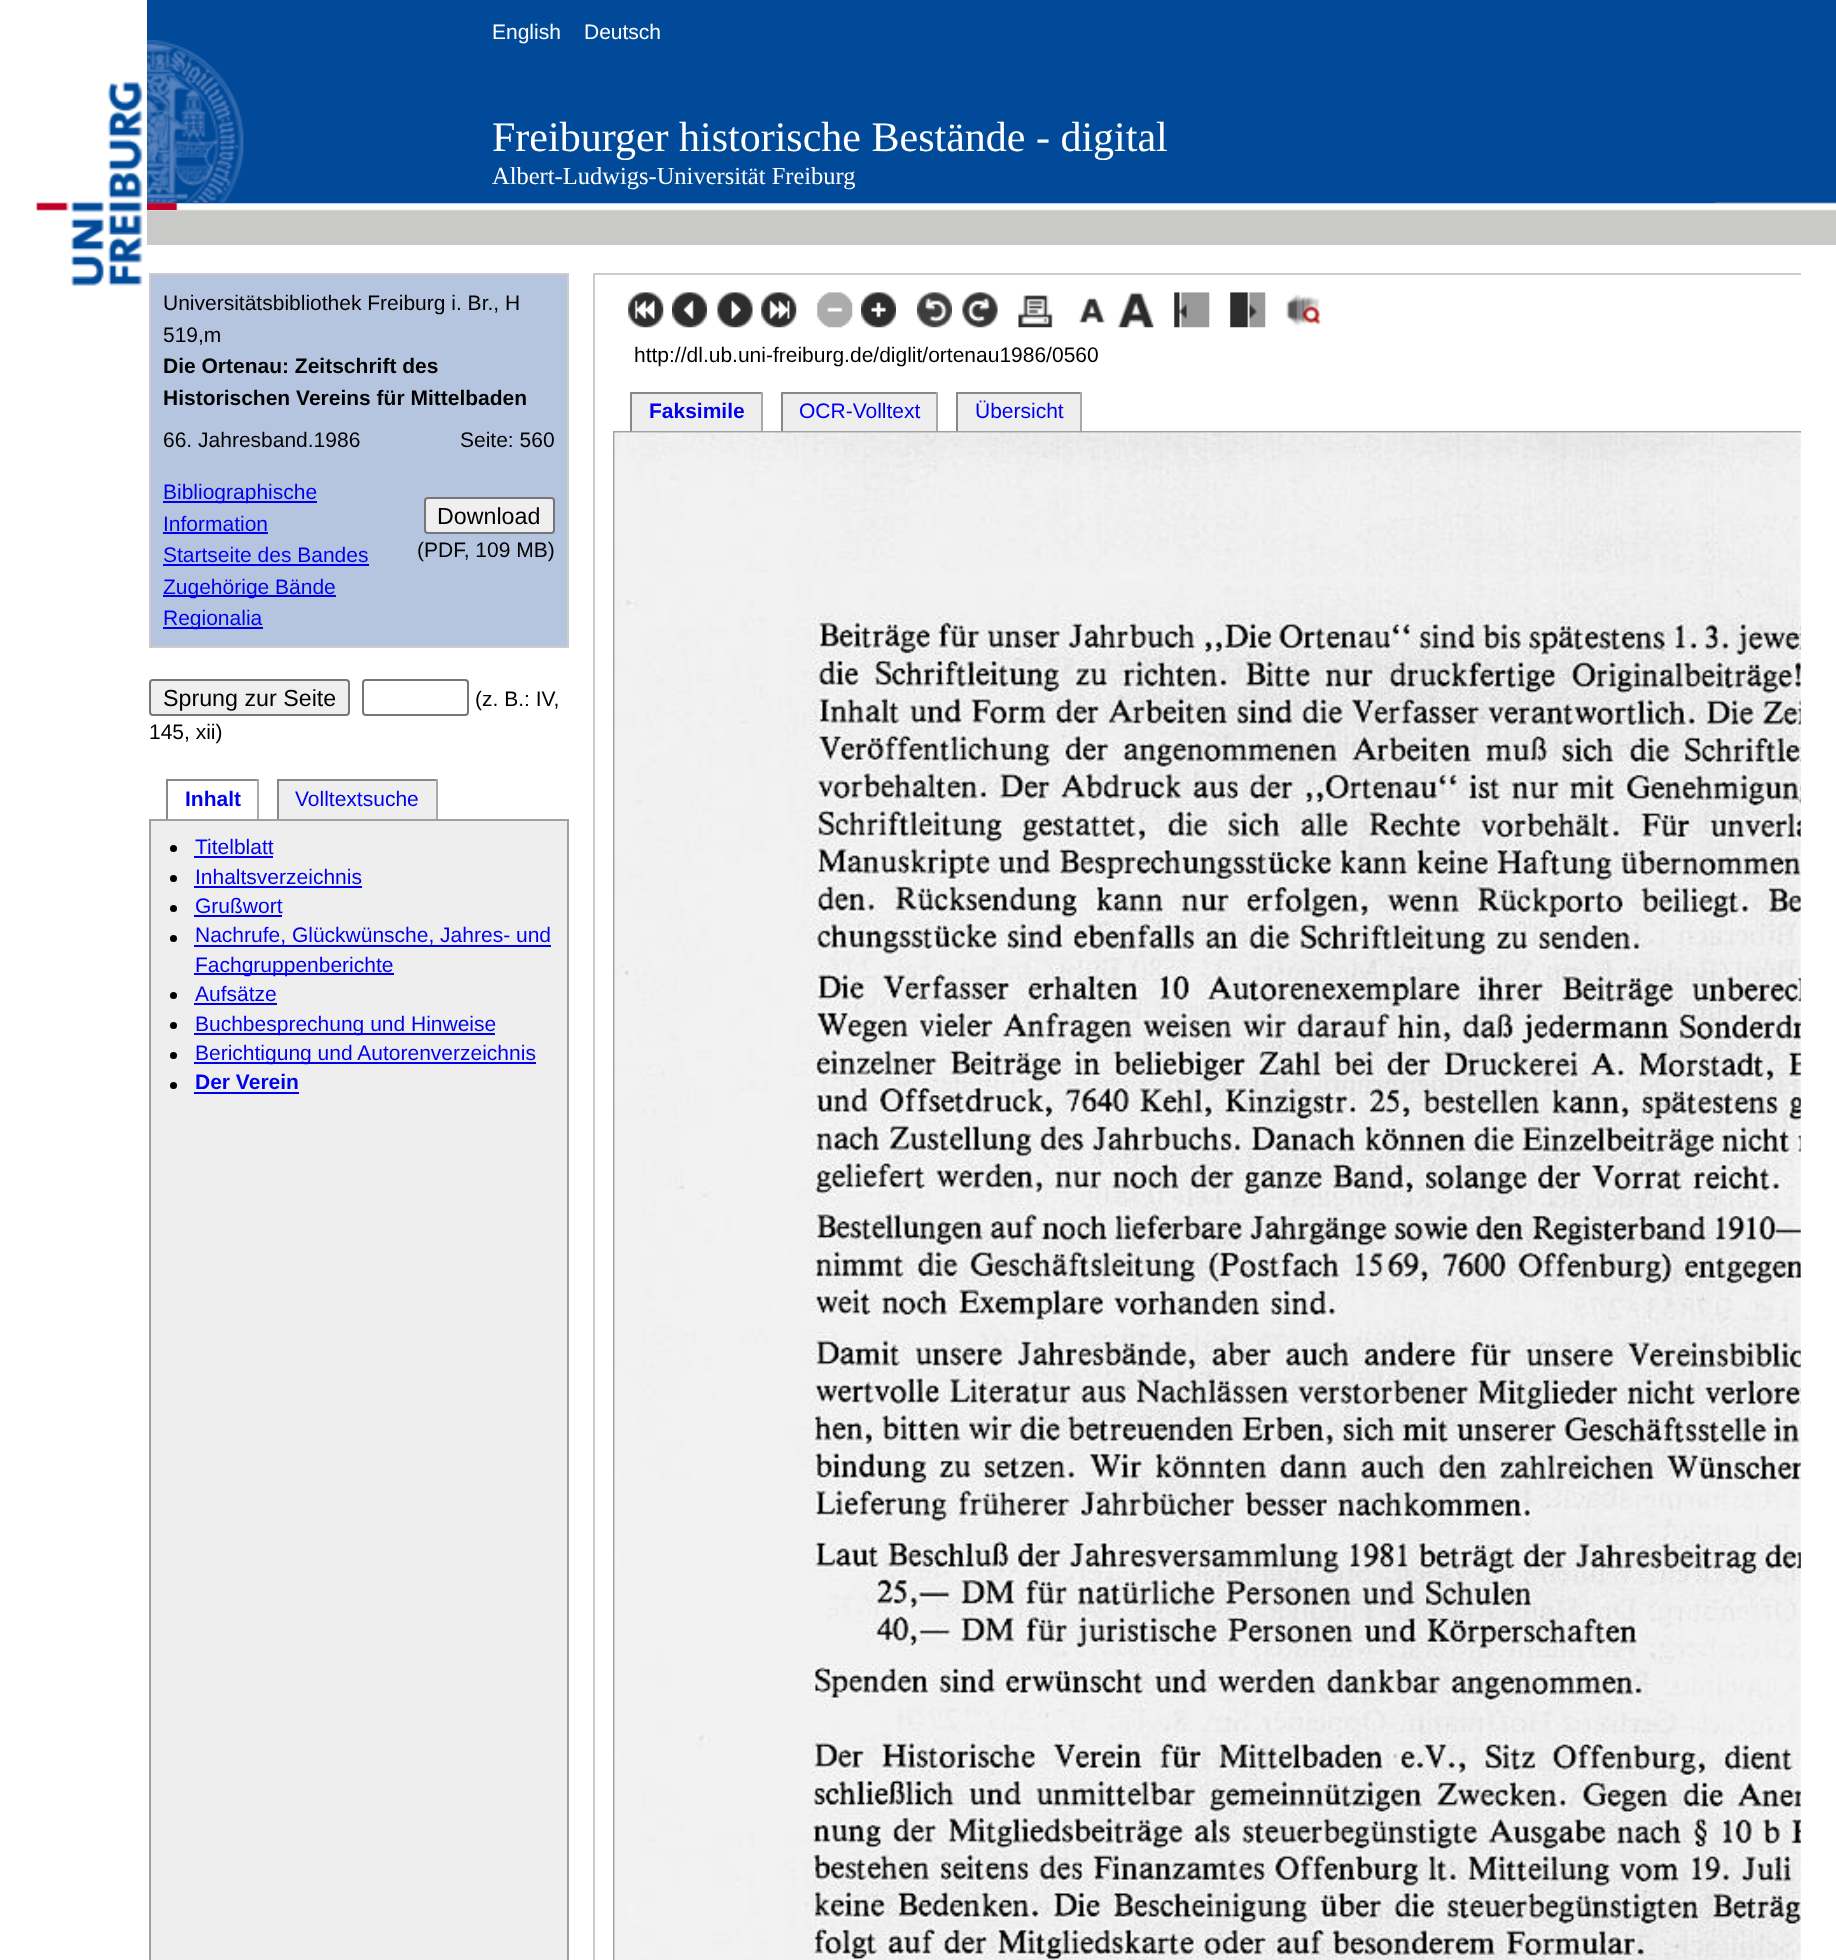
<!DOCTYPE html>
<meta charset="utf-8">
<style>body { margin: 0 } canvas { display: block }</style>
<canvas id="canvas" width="1836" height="1960"></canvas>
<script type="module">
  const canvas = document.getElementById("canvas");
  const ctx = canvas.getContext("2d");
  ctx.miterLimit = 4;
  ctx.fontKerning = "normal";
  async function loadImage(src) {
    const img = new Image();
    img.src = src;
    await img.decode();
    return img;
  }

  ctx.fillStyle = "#ffffff";
  ctx.fillRect(0, 0, 1836, 1960);
  ctx.drawImage(await loadImage("img1.png"), 147, 0, 1689, 245);
  ctx.fillStyle = "#004a99";
  ctx.fillRect(147, 202, 1568, 1);
  ctx.drawImage(await loadImage("img2.png"), 36, 81, 107, 205);
  ctx.drawImage(await loadImage("img3.png"), 147, 40, 97, 170);
  ctx.font = "21px Liberation Sans";
  ctx.fillStyle = "#ffffff";
  ctx.fillText("English", 492, 39);
  ctx.fillText("Deutsch", 584, 39);
  ctx.font = "42px Liberation Serif";
  ctx.fillText("Freiburger historische Bestände - digital", 492, 151);
  ctx.font = "24.5px Liberation Serif";
  ctx.fillText("Albert-Ludwigs-Universität Freiburg", 492, 184);
  ctx.fillStyle = "#b6c5df";
  ctx.beginPath();
  ctx.rect(150, 274, 418, 373);
  ctx.fill();
  ctx.strokeStyle = "#cccccc";
  ctx.lineWidth = 2;
  ctx.stroke();
  ctx.font = "21px Liberation Sans";
  ctx.fillStyle = "#000000";
  ctx.fillText("Universitätsbibliothek Freiburg i. Br., H", 163, 310);
  ctx.fillText("519,m", 163, 342);
  ctx.font = "bold 21px Liberation Sans";
  ctx.fillText("Die Ortenau: Zeitschrift des", 163, 373);
  ctx.fillText("Historischen Vereins für Mittelbaden", 163, 405);
  ctx.font = "21px Liberation Sans";
  ctx.fillText("66. Jahresband.1986", 163, 447);
  ctx.fillText("Seite: 560", 460, 447);
  ctx.fillStyle = "#0000ee";
  ctx.fillRect(163, 501, 154, 2);
  ctx.fillText("Bibliographische", 163, 499);
  ctx.fillText("Information", 163, 531);
  ctx.fillRect(163, 532, 105, 2);
  ctx.fillStyle = "#efefef";
  ctx.beginPath();
  ctx.roundRect(425, 498, 129, 35, 3);
  ctx.fill();
  ctx.strokeStyle = "#767676";
  ctx.stroke();
  ctx.font = "23.25px Liberation Sans";
  ctx.fillStyle = "#000000";
  ctx.fillText("Download", 437, 524);
  ctx.font = "21px Liberation Sans";
  ctx.fillText("(PDF, 109 MB)", 417, 557);
  ctx.fillStyle = "#0000ee";
  ctx.fillText("Startseite des Bandes", 163, 562);
  ctx.fillRect(163, 564, 206, 2);
  ctx.fillRect(163, 595, 173, 2);
  ctx.fillText("Zugehörige Bände", 163, 594);
  ctx.fillRect(163, 627, 100, 2);
  ctx.fillText("Regionalia", 163, 625);
  ctx.fillStyle = "#efefef";
  ctx.beginPath();
  ctx.roundRect(150, 680, 199, 35, 3);
  ctx.fill();
  ctx.stroke();
  ctx.font = "23.25px Liberation Sans";
  ctx.fillStyle = "#000000";
  ctx.fillText("Sprung zur Seite", 163, 706);
  ctx.beginPath();
  ctx.roundRect(363, 680, 105, 35, 3);
  ctx.stroke();
  ctx.font = "21px Liberation Sans";
  ctx.fillText("(z. B.: IV,", 475, 706);
  ctx.fillText("145, xii)", 149, 739);
  ctx.fillStyle = "#888888";
  ctx.fillRect(166, 779, 93, 2);
  ctx.fillStyle = "#aaaaaa";
  ctx.fillRect(257, 779, 2, 40);
  ctx.fillStyle = "#888888";
  ctx.fillRect(166, 779, 2, 40);
  ctx.font = "bold 21px Liberation Sans";
  ctx.fillStyle = "#0000ee";
  ctx.fillText("Inhalt", 185, 806);
  ctx.fillStyle = "#eeeeee";
  ctx.fillRect(279, 781, 157, 38);
  ctx.fillStyle = "#888888";
  ctx.fillRect(277, 779, 161, 2);
  ctx.fillStyle = "#aaaaaa";
  ctx.fillRect(436, 779, 2, 40);
  ctx.fillStyle = "#888888";
  ctx.fillRect(277, 779, 2, 40);
  ctx.font = "21px Liberation Sans";
  ctx.fillStyle = "#0000ee";
  ctx.fillText("Volltextsuche", 295, 806);
  ctx.fillStyle = "#eeeeee";
  ctx.beginPath();
  ctx.rect(150, 820, 418, 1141);
  ctx.fill();
  ctx.strokeStyle = "#a0a0a0";
  ctx.stroke();
  ctx.fillStyle = "#000000";
  ctx.beginPath();
  ctx.arc(173.5, 848.5, 3.5, 0, Math.PI * 2);
  ctx.fill();
  ctx.fillStyle = "#0000ee";
  ctx.fillText("Titelblatt", 195, 854);
  ctx.fillRect(194, 856, 79, 2);
  ctx.fillStyle = "#000000";
  ctx.beginPath();
  ctx.arc(173.5, 878.5, 3.5, 0, Math.PI * 2);
  ctx.fill();
  ctx.fillStyle = "#0000ee";
  ctx.fillText("Inhaltsverzeichnis", 195, 884);
  ctx.fillRect(194, 886, 168, 2);
  ctx.fillStyle = "#000000";
  ctx.beginPath();
  ctx.arc(173.5, 908.5, 3.5, 0, Math.PI * 2);
  ctx.fill();
  ctx.fillStyle = "#0000ee";
  ctx.fillText("Grußwort", 195, 913);
  ctx.fillRect(194, 915, 88, 2);
  ctx.fillStyle = "#000000";
  ctx.beginPath();
  ctx.arc(173.5, 938.5, 3.5, 0, Math.PI * 2);
  ctx.fill();
  ctx.fillStyle = "#0000ee";
  ctx.fillText("Nachrufe, Glückwünsche, Jahres- und", 195, 942);
  ctx.fillRect(194, 945, 357, 2);
  ctx.fillRect(194, 973, 200, 2);
  ctx.fillText("Fachgruppenberichte", 195, 972);
  ctx.fillStyle = "#000000";
  ctx.beginPath();
  ctx.arc(173.5, 995.5, 3.5, 0, Math.PI * 2);
  ctx.fill();
  ctx.fillStyle = "#0000ee";
  ctx.fillText("Aufsätze", 195, 1001);
  ctx.fillRect(194, 1003, 83, 2);
  ctx.fillStyle = "#000000";
  ctx.beginPath();
  ctx.arc(173.5, 1025.5, 3.5, 0, Math.PI * 2);
  ctx.fill();
  ctx.fillStyle = "#0000ee";
  ctx.fillRect(194, 1033, 301, 2);
  ctx.fillText("Buchbesprechung und Hinweise", 195, 1031);
  ctx.fillStyle = "#000000";
  ctx.beginPath();
  ctx.arc(173.5, 1055.5, 3.5, 0, Math.PI * 2);
  ctx.fill();
  ctx.fillStyle = "#0000ee";
  ctx.fillRect(194, 1062, 342, 2);
  ctx.fillText("Berichtigung und Autorenverzeichnis", 195, 1060);
  ctx.fillStyle = "#000000";
  ctx.beginPath();
  ctx.arc(173.5, 1085.5, 3.5, 0, Math.PI * 2);
  ctx.fill();
  ctx.font = "bold 21px Liberation Sans";
  ctx.fillStyle = "#0000ee";
  ctx.fillText("Der Verein", 195, 1089);
  ctx.fillRect(194, 1092, 105, 2);
  ctx.fillStyle = "#cccccc";
  ctx.fillRect(593, 273, 1208, 2);
  ctx.fillRect(593, 273, 2, 1687);
  ctx.drawImage(await loadImage("img4.png"), 628, 292, 36, 36);
  ctx.drawImage(await loadImage("img5.png"), 672, 292, 35, 36);
  ctx.drawImage(await loadImage("img6.png"), 717, 292, 36, 36);
  ctx.drawImage(await loadImage("img7.png"), 761, 292, 36, 36);
  ctx.drawImage(await loadImage("img8.png"), 817, 292, 36, 36);
  ctx.drawImage(await loadImage("img9.png"), 861, 292, 35, 36);
  ctx.drawImage(await loadImage("img10.png"), 917, 292, 35, 36);
  ctx.drawImage(await loadImage("img11.png"), 962, 292, 36, 36);
  ctx.drawImage(await loadImage("img12.png"), 1018, 295, 35, 33);
  ctx.drawImage(await loadImage("img13.png"), 1079, 297, 26, 26);
  ctx.drawImage(await loadImage("img14.png"), 1118, 292, 36, 36);
  ctx.drawImage(await loadImage("img15.png"), 1174, 292, 36, 36);
  ctx.drawImage(await loadImage("img16.png"), 1230, 292, 36, 36);
  ctx.drawImage(await loadImage("img17.png"), 1286, 294, 36, 32);
  ctx.font = "21px Liberation Sans";
  ctx.fillStyle = "#000000";
  ctx.fillText("http://dl.ub.uni-freiburg.de/diglit/ortenau1986/0560", 634, 362);
  ctx.fillStyle = "#eeeeee";
  ctx.fillRect(632, 394, 129, 37);
  ctx.fillStyle = "#888888";
  ctx.fillRect(630, 392, 133, 2);
  ctx.fillStyle = "#aaaaaa";
  ctx.fillRect(761, 392, 2, 39);
  ctx.fillStyle = "#888888";
  ctx.fillRect(630, 392, 2, 39);
  ctx.font = "bold 21px Liberation Sans";
  ctx.fillStyle = "#0000ee";
  ctx.fillText("Faksimile", 649, 418);
  ctx.fillStyle = "#eeeeee";
  ctx.fillRect(783, 394, 153, 37);
  ctx.fillStyle = "#888888";
  ctx.fillRect(781, 392, 157, 2);
  ctx.fillStyle = "#aaaaaa";
  ctx.fillRect(936, 392, 2, 39);
  ctx.fillStyle = "#888888";
  ctx.fillRect(781, 392, 2, 39);
  ctx.font = "21px Liberation Sans";
  ctx.fillStyle = "#0000ee";
  ctx.fillText("OCR-Volltext", 799, 418);
  ctx.fillStyle = "#eeeeee";
  ctx.fillRect(958, 394, 122, 37);
  ctx.fillStyle = "#888888";
  ctx.fillRect(956, 392, 126, 2);
  ctx.fillStyle = "#aaaaaa";
  ctx.fillRect(1080, 392, 2, 39);
  ctx.fillStyle = "#888888";
  ctx.fillRect(956, 392, 2, 39);
  ctx.fillStyle = "#0000ee";
  ctx.fillText("Übersicht", 975, 418);
  ctx.save();
  ctx.beginPath();
  ctx.rect(149, 273, 1652, 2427);
  ctx.clip();
  ctx.strokeRect(614, 432, 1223, 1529);
  ctx.restore();
  ctx.drawImage(await loadImage("img18.png"), 614, 432, 1187, 1528);
</script>
